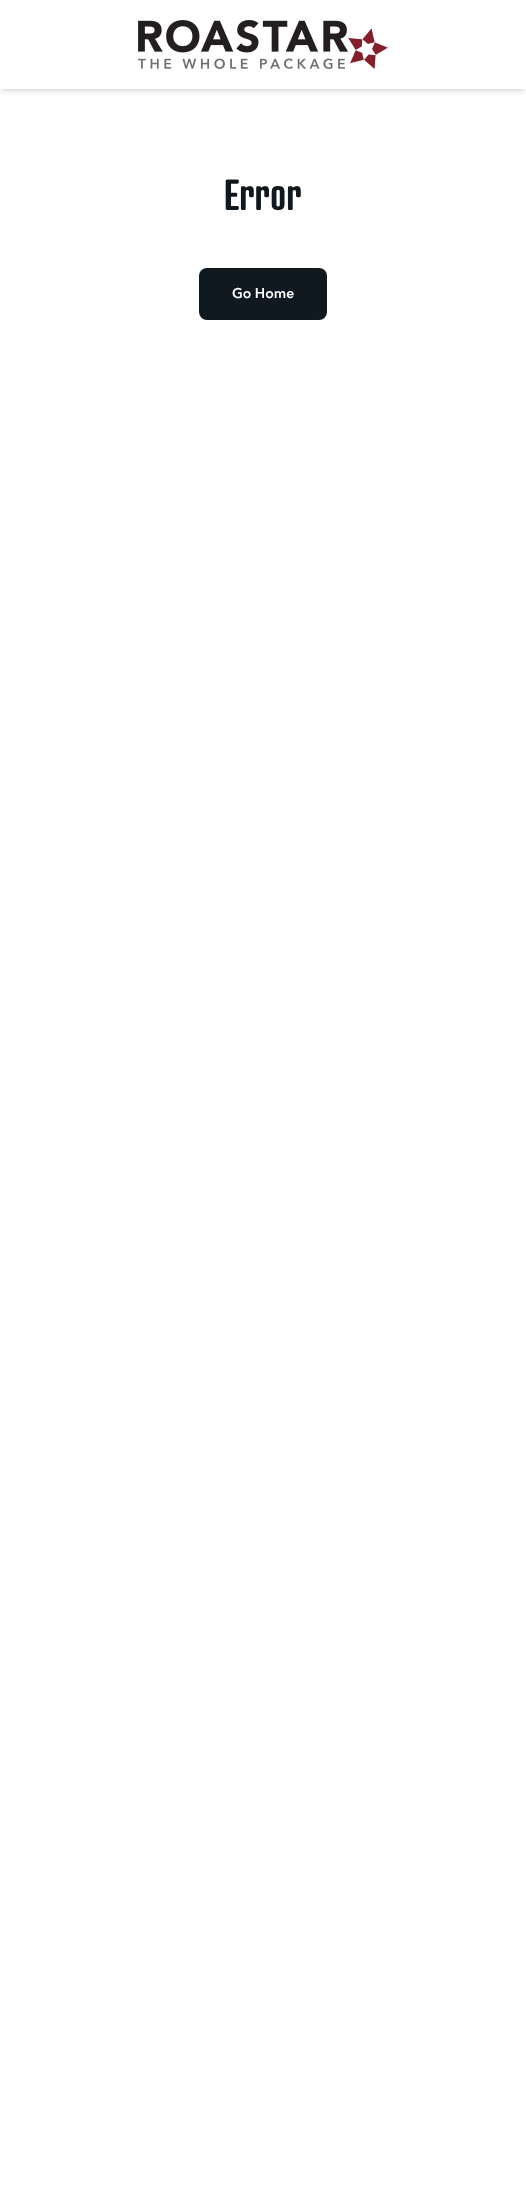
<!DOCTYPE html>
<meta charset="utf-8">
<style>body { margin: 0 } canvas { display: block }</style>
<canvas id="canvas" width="526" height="2193"></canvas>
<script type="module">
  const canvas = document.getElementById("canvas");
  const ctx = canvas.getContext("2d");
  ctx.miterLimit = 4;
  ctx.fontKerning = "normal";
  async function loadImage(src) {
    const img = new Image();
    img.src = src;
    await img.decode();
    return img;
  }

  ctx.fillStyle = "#ffffff";
  ctx.fillRect(0, 0, 526, 2193);
  ctx.save();
  ctx.beginPath();
  ctx.rect(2, 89, 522, 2);
  ctx.clip();
  ctx.fillStyle = "rgba(0, 0, 0, 0.1)";
  ctx.filter = "blur(2px)";
  ctx.beginPath();
  ctx.rect(2, 4, 522, 85);
  ctx.fill();
  ctx.filter = "none";
  ctx.restore();
  ctx.save();
  ctx.beginPath();
  ctx.rect(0, 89, 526, 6);
  ctx.clip();
  ctx.fillStyle = "rgba(0, 0, 0, 0.1)";
  ctx.filter = "blur(3px)";
  ctx.beginPath();
  ctx.rect(1, 5, 524, 87);
  ctx.fill();
  ctx.filter = "none";
  ctx.restore();
  ctx.drawImage(await loadImage("img1.png"), 138, 20, 250, 49);
  ctx.font = "600 42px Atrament";
  ctx.fillStyle = "#101820";
  ctx.fillText("Error", 224, 210);
  ctx.beginPath();
  ctx.roundRect(199, 268, 128, 52, 8);
  ctx.fill();
  ctx.font = "bold 14px Avenir Next";
  ctx.fillStyle = "#ffffff";
  ctx.fillText("Go Home", 232, 298);
</script>
